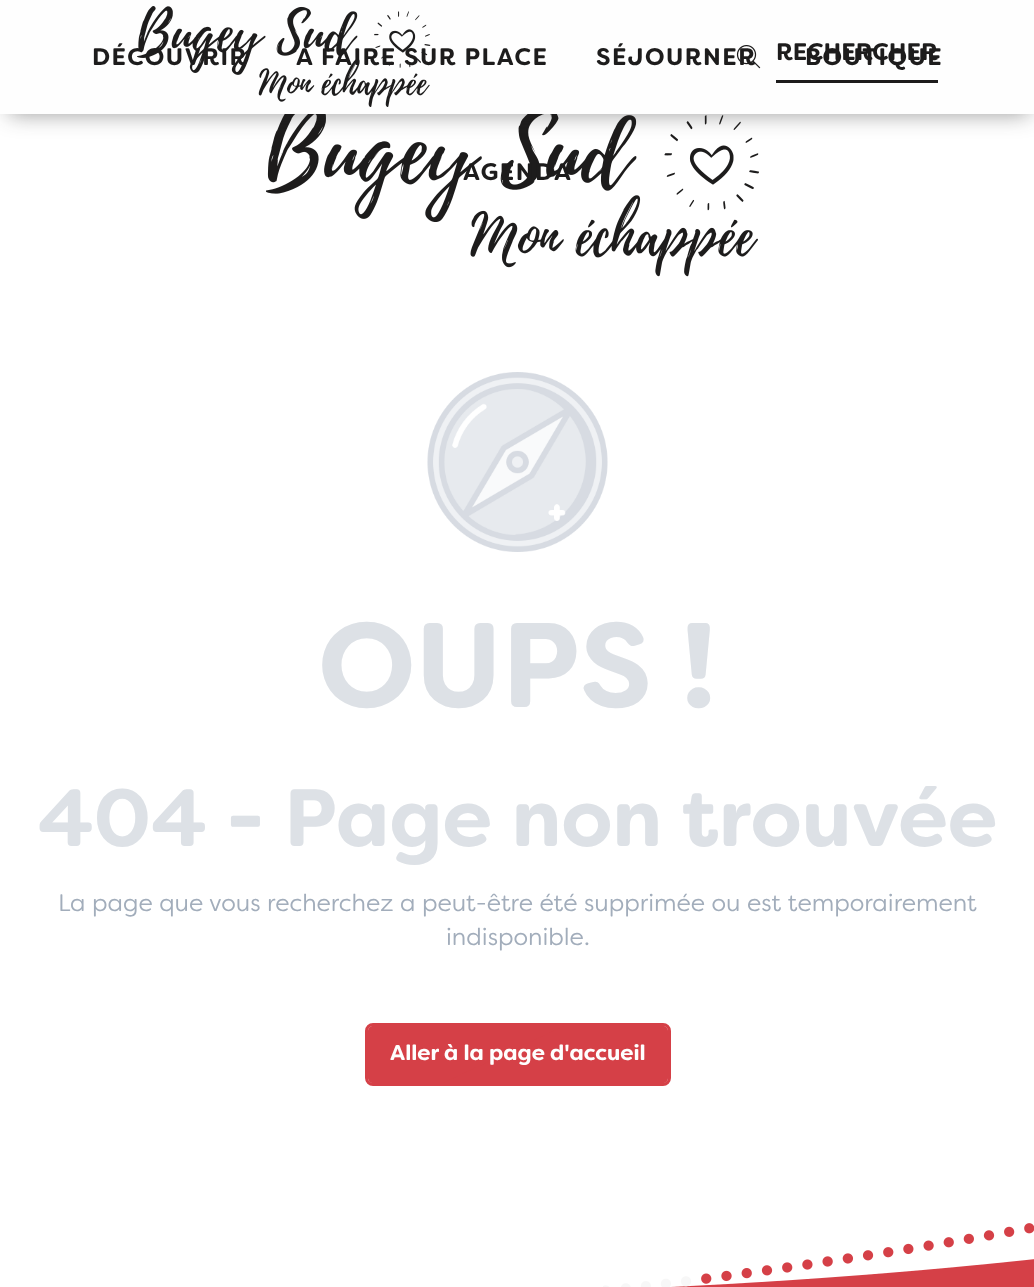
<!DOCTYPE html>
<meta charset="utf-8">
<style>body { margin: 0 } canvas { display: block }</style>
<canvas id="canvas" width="1034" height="1287"></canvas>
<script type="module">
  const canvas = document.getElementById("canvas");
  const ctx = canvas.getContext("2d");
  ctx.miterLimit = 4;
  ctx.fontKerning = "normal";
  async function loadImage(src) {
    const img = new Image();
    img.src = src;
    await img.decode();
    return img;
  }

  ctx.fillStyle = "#ffffff";
  ctx.fillRect(0, 0, 1034, 1287);
  ctx.drawImage(await loadImage("img3.png"), 266, 114, 493, 163);
  ctx.fillStyle = "rgba(29, 28, 28, 0.45)";
  ctx.filter = "blur(11px)";
  ctx.beginPath();
  ctx.rect(9, 15, 1020, 99);
  ctx.fill();
  ctx.filter = "none";
  ctx.fillStyle = "#fefefe";
  ctx.fillRect(0, 0, 1034, 114);
  ctx.letterSpacing = "1.5px";
  ctx.font = "bold 24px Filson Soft";
  ctx.fillStyle = "#1d1c1c";
  ctx.fillText("SÉJOURNER", 596, 65);
  ctx.drawImage(await loadImage("img1.png"), 736, 45, 25, 24);
  ctx.fillText("BOUTIQUE", 805, 65);
  ctx.letterSpacing = "0px";
  ctx.fillText("RECHERCHER", 776, 60);
  ctx.fillRect(776, 80, 162, 3);
  ctx.letterSpacing = "1.5px";
  ctx.fillText("DÉCOUVRIR", 92, 65);
  ctx.fillText("A FAIRE SUR PLACE", 296, 65);
  ctx.drawImage(await loadImage("img2.png"), 137, 6, 294, 101);
  ctx.fillText("AGENDA", 463, 180);
  ctx.drawImage(await loadImage("img4.png"), 427, 372, 181, 180);
  ctx.letterSpacing = "0px";
  ctx.font = "bold 120px Filson Soft";
  ctx.fillStyle = "#dde1e6";
  ctx.fillText("OUPS !", 318, 707);
  ctx.font = "bold 81px Filson Soft";
  ctx.fillText("404 - Page non trouvée", 38, 846);
  ctx.font = "24px Filson Soft";
  ctx.fillStyle = "#a2adbb";
  ctx.fillText("La page que vous recherchez a peut-être été supprimée ou est temporairement", 58, 911);
  ctx.fillText("indisponible.", 446, 945);
  ctx.beginPath();
  ctx.roundRect(366.5, 1024.5, 303, 60, 6.5);
  ctx.strokeStyle = "#d54047";
  ctx.lineWidth = 3;
  ctx.stroke();
  ctx.fillStyle = "#d54047";
  ctx.beginPath();
  ctx.moveTo(373, 1026);
  ctx.lineTo(594, 1026);
  ctx.lineTo(473, 1083);
  ctx.lineTo(373, 1083);
  ctx.bezierCurveTo(370, 1083, 368, 1081, 368, 1078);
  ctx.lineTo(368, 1031);
  ctx.bezierCurveTo(368, 1028, 370, 1026, 373, 1026);
  ctx.closePath();
  ctx.fill();
  ctx.beginPath();
  ctx.moveTo(443, 1083);
  ctx.lineTo(564, 1026);
  ctx.lineTo(663, 1026);
  ctx.bezierCurveTo(666, 1026, 668, 1028, 668, 1031);
  ctx.lineTo(668, 1078);
  ctx.bezierCurveTo(668, 1081, 666, 1083, 663, 1083);
  ctx.closePath();
  ctx.fill();
  ctx.font = "bold 21.6px Filson Soft";
  ctx.fillStyle = "#fefefe";
  ctx.fillText("Aller à la page d'accueil", 390, 1060);
  ctx.drawImage(await loadImage("img5.png"), 603, 1223, 431, 64);
</script>
